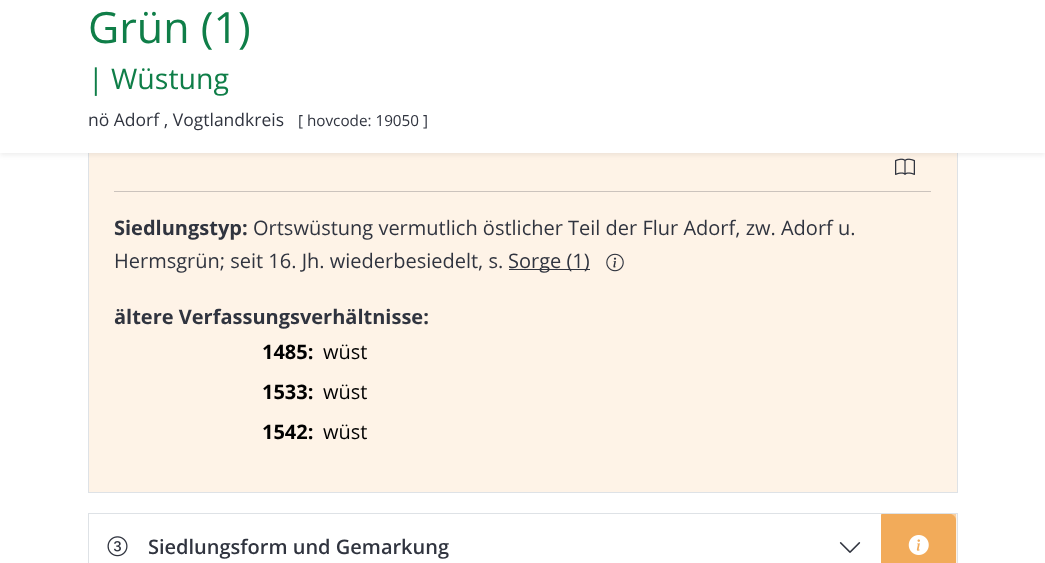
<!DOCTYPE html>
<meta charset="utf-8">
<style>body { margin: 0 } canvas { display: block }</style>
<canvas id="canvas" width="1045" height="563"></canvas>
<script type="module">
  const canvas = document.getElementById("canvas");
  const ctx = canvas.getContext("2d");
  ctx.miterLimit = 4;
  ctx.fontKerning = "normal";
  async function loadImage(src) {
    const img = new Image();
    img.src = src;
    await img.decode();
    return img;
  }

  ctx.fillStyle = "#ffffff";
  ctx.fillRect(0, 0, 1045, 563);
  ctx.fillStyle = "#fef3e7";
  ctx.fillRect(89, 153, 868, 339);
  ctx.strokeStyle = "#dee2e6";
  ctx.strokeRect(88.5, 45.5, 869, 447);
  ctx.drawImage(await loadImage("img1.png"), 895, 158, 20, 17);
  ctx.fillStyle = "rgba(0, 0, 0, 0.07)";
  ctx.filter = "blur(2.5px)";
  ctx.beginPath();
  ctx.rect(0, 3, 1045, 152);
  ctx.fill();
  ctx.filter = "none";
  ctx.fillStyle = "#ffffff";
  ctx.fillRect(0, 0, 1045, 153);
  ctx.font = "43px Open Sans";
  ctx.fillStyle = "#0f7e48";
  ctx.fillText("Grün (1)", 88, 43);
  ctx.font = "28.5px Open Sans";
  ctx.fillText("| Wüstung", 88, 89);
  ctx.font = "17.5px Open Sans";
  ctx.fillStyle = "#30343f";
  ctx.fillText("nö Adorf , Vogtlandkreis", 88, 126);
  ctx.font = "15.25px Open Sans";
  ctx.fillText("[ hovcode: 19050 ]", 298, 126);
  ctx.fillStyle = "#cbc3bd";
  ctx.fillRect(114, 191, 817, 1);
  ctx.font = "bold 20px Open Sans";
  ctx.fillStyle = "#30343f";
  ctx.fillText("Siedlungstyp:", 114, 235);
  ctx.font = "20px Open Sans";
  ctx.fillText("Ortswüstung vermutlich östlicher Teil der Flur Adorf, zw. Adorf u.", 253, 235);
  ctx.fillText("Hermsgrün; seit 16. Jh. wiederbesiedelt, s.", 114, 268);
  ctx.fillRect(509, 269, 81, 1);
  ctx.fillText("Sorge (1)", 508, 268);
  ctx.drawImage(await loadImage("img2.png"), 606, 253, 18, 19);
  ctx.font = "bold 20px Open Sans";
  ctx.fillText("ältere Verfassungsverhältnisse:", 114, 324);
  ctx.fillStyle = "#000000";
  ctx.fillText("1485:", 262, 359);
  ctx.font = "20px Open Sans";
  ctx.fillText("wüst", 323, 359);
  ctx.font = "bold 20px Open Sans";
  ctx.fillText("1533:", 262, 399);
  ctx.font = "20px Open Sans";
  ctx.fillText("wüst", 323, 399);
  ctx.font = "bold 20px Open Sans";
  ctx.fillText("1542:", 262, 439);
  ctx.font = "20px Open Sans";
  ctx.fillText("wüst", 323, 439);
  ctx.fillStyle = "#fdf2e6";
  ctx.fillRect(956, 514, 1, 49);
  ctx.strokeRect(88.5, 513.5, 869, 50);
  ctx.fillStyle = "#f8cfa0";
  ctx.fillRect(950, 514, 6, 6);
  ctx.drawImage(await loadImage("img3.png"), 107, 536, 21, 21);
  ctx.font = "600 20px Open Sans";
  ctx.fillStyle = "#30343f";
  ctx.fillText("Siedlungsform und Gemarkung", 148, 554);
  ctx.drawImage(await loadImage("img4.png"), 839, 542, 22, 11);
  ctx.fillStyle = "#f2ab5a";
  ctx.beginPath();
  ctx.moveTo(881.5, 514.5);
  ctx.lineTo(950, 514.5);
  ctx.bezierCurveTo(953, 514.5, 955.5, 517, 955.5, 520);
  ctx.lineTo(955.5, 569.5);
  ctx.lineTo(881.5, 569.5);
  ctx.closePath();
  ctx.fill();
  ctx.strokeStyle = "#f2ab5a";
  ctx.stroke();
  ctx.drawImage(await loadImage("img5.png"), 908, 535, 21, 20);
</script>
